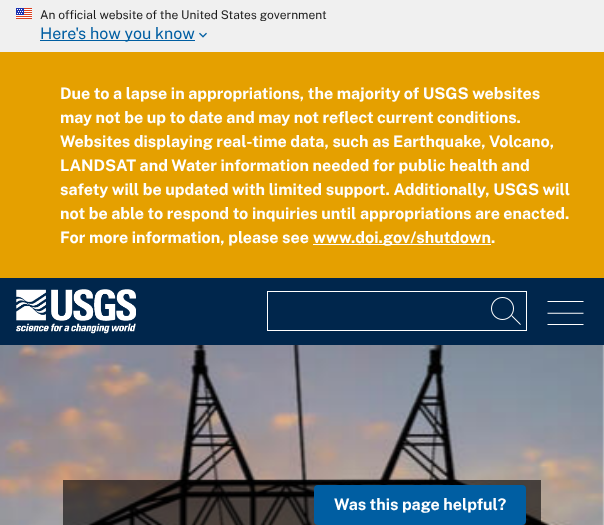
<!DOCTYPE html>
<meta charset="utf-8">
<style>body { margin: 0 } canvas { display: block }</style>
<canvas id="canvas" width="604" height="525"></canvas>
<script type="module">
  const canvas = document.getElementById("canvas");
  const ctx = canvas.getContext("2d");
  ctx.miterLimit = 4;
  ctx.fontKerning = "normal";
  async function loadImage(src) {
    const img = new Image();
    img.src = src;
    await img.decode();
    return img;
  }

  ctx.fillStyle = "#ffffff";
  ctx.fillRect(0, 0, 604, 525);
  ctx.fillStyle = "#f0f0f0";
  ctx.fillRect(0, 0, 604, 52);
  ctx.drawImage(await loadImage("img1.png"), 16, 8, 16, 11);
  ctx.font = "12px Public Sans";
  ctx.fillStyle = "#1b1b1b";
  ctx.fillText("An official website of the United States government", 40, 19);
  ctx.fillStyle = "#005ea2";
  ctx.fillRect(40, 40, 155, 1);
  ctx.font = "16px Public Sans";
  ctx.fillText("Here's how you know", 40, 39);
  ctx.drawImage(await loadImage("img2.png"), 199, 32, 8, 6);
  ctx.fillStyle = "#00264c";
  ctx.fillRect(0, 278, 604, 67);
  ctx.fillStyle = "#e5a000";
  ctx.fillRect(0, 52, 604, 226);
  ctx.font = "bold 16px Public Sans";
  ctx.fillStyle = "#ffffff";
  ctx.fillText("Due to a lapse in appropriations, the majority of USGS websites", 60, 99);
  ctx.fillText("may not be up to date and may not reflect current conditions.", 60, 123);
  ctx.fillText("Websites displaying real-time data, such as Earthquake, Volcano,", 60, 147);
  ctx.fillText("LANDSAT and Water information needed for public health and", 60, 171);
  ctx.fillText("safety will be updated with limited support. Additionally, USGS will", 60, 195);
  ctx.fillText("not be able to respond to inquiries until appropriations are enacted.", 60, 219);
  ctx.fillText("For more information, please see", 60, 243);
  ctx.fillRect(313, 244, 178, 1);
  ctx.fillText("www.doi.gov/shutdown.", 313, 243);
  ctx.drawImage(await loadImage("img3.png"), 16, 289, 120, 45);
  ctx.strokeStyle = "#ffffff";
  ctx.strokeRect(267.5, 291.5, 259, 39);
  ctx.drawImage(await loadImage("img4.png"), 491, 297, 30, 28);
  ctx.drawImage(await loadImage("img5.png"), 547, 301, 37, 24);
  ctx.drawImage(await loadImage("img6.png"), 0, 345, 604, 180);
  ctx.fillStyle = "rgba(0, 0, 0, 0.6)";
  ctx.fillRect(63, 480, 478, 45);
  ctx.fillStyle = "#005ea2";
  ctx.beginPath();
  ctx.roundRect(314, 485, 212, 40, 4);
  ctx.fill();
  ctx.fillStyle = "#ffffff";
  ctx.fillText("Was this page helpful?", 334, 510);
</script>
